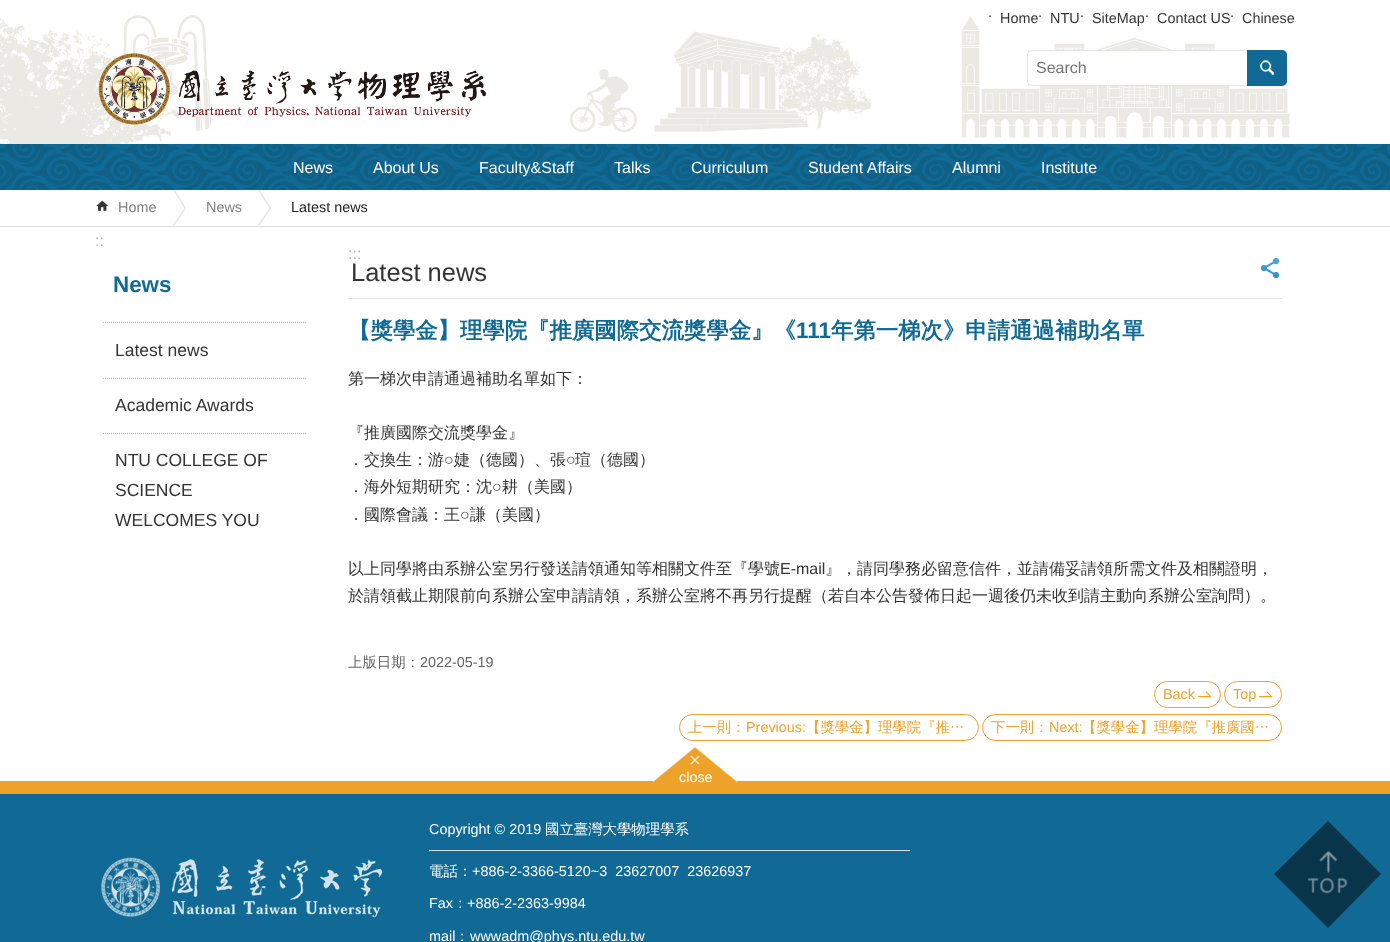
<!DOCTYPE html>
<meta charset="utf-8">
<style>body { margin: 0 } canvas { display: block }</style>
<canvas id="canvas" width="1390" height="942"></canvas>
<script type="module">
  const canvas = document.getElementById("canvas");
  const ctx = canvas.getContext("2d");
  ctx.miterLimit = 4;
  ctx.fontKerning = "normal";
  async function loadImage(src) {
    const img = new Image();
    img.src = src;
    await img.decode();
    return img;
  }

  ctx.fillStyle = "#ffffff";
  ctx.fillRect(0, 0, 1390, 942);
  ctx.drawImage(await loadImage("img1.png"), 0, 15, 211, 129);
  ctx.drawImage(await loadImage("img2.png"), 570, 16, 720, 122);
  ctx.font = "14.4px Liberation Sans";
  ctx.fillStyle = "#343434";
  ctx.fillText(".", 988, 17);
  ctx.fillText("Home", 1000, 23);
  ctx.fillText(".", 1038, 17);
  ctx.fillText("NTU", 1050, 23);
  ctx.fillText(".", 1080, 17);
  ctx.fillText("SiteMap", 1092, 23);
  ctx.fillText(".", 1145, 17);
  ctx.fillText("Contact US", 1157, 23);
  ctx.fillText(".", 1230, 17);
  ctx.fillText("Chinese", 1242, 23);
  ctx.drawImage(await loadImage("img3.png"), 98, 53, 388, 72);
  ctx.fillStyle = "#ffffff";
  ctx.beginPath();
  ctx.roundRect(1027.5, 50.5, 259, 35, [4.5, 0, 0, 4.5]);
  ctx.fill();
  ctx.strokeStyle = "#e4e4e4";
  ctx.stroke();
  ctx.font = "16px Liberation Sans";
  ctx.fillStyle = "#757575";
  ctx.fillText("Search", 1036, 73);
  ctx.fillStyle = "#116a95";
  ctx.beginPath();
  ctx.roundRect(1247, 50, 40, 36, [0, 5, 5, 0]);
  ctx.fill();
  ctx.drawImage(await loadImage("img4.png"), 1260, 60, 14, 15);
  ctx.fillRect(0, 144, 1390, 46);
  ctx.drawImage(await loadImage("img5.png"), 0, 144, 1390, 46);
  ctx.fillStyle = "#ffffff";
  ctx.fillText("News", 293, 173);
  ctx.fillText("About Us", 373, 173);
  ctx.fillText("Faculty&Staff", 479, 173);
  ctx.fillText("Talks", 614, 173);
  ctx.fillText("Curriculum", 691, 173);
  ctx.fillText("Student Affairs", 808, 173);
  ctx.fillText("Alumni", 952, 173);
  ctx.fillText("Institute", 1041, 173);
  ctx.fillStyle = "#dddddd";
  ctx.fillRect(0, 226, 1390, 1);
  ctx.drawImage(await loadImage("img6.png"), 96, 200, 12, 11);
  ctx.font = "14.4px Liberation Sans";
  ctx.fillStyle = "#808080";
  ctx.fillText("Home", 118, 212);
  ctx.drawImage(await loadImage("img7.png"), 173, 190, 13, 35);
  ctx.fillText("News", 206, 212);
  ctx.drawImage(await loadImage("img7.png"), 258, 190, 13, 35);
  ctx.fillStyle = "#222222";
  ctx.fillText("Latest news", 291, 212);
  ctx.font = "16px Liberation Sans";
  ctx.fillStyle = "#b6b6b6";
  ctx.fillText("::", 95, 246);
  ctx.beginPath();
  ctx.moveTo(103, 322.5);
  ctx.lineTo(307, 322.5);
  ctx.strokeStyle = "#bbbbbb";
  ctx.setLineDash([1, 1]);
  ctx.stroke();
  ctx.font = "bold 22.4px Liberation Sans";
  ctx.fillStyle = "#116a95";
  ctx.fillText("News", 113, 292);
  ctx.font = "17.5px Liberation Sans";
  ctx.fillStyle = "#343434";
  ctx.fillText("Latest news", 115, 356);
  ctx.beginPath();
  ctx.moveTo(103, 378.5);
  ctx.lineTo(307, 378.5);
  ctx.stroke();
  ctx.fillText("Academic Awards", 115, 411);
  ctx.beginPath();
  ctx.moveTo(103, 433.5);
  ctx.lineTo(307, 433.5);
  ctx.stroke();
  ctx.fillText("NTU COLLEGE OF", 115, 466);
  ctx.fillText("SCIENCE", 115, 496);
  ctx.fillText("WELCOMES YOU", 115, 526);
  ctx.font = "16px Liberation Sans";
  ctx.fillStyle = "#b6b6b6";
  ctx.fillText(":::", 348, 259);
  ctx.fillStyle = "#e4e4e4";
  ctx.fillRect(348, 298, 934, 1);
  ctx.font = "25.5px Liberation Sans";
  ctx.fillStyle = "#343434";
  ctx.fillText("Latest news", 351, 281);
  ctx.drawImage(await loadImage("img8.png"), 1261, 258, 19, 20);
  ctx.font = "bold 22.4px WenQuanYi Zen Hei";
  ctx.fillStyle = "#116a95";
  ctx.fillText("【獎學金】理學院『推廣國際交流獎學金』《", 348, 338);
  ctx.font = "bold 22.4px Liberation Sans";
  ctx.fillText("111", 796, 338);
  ctx.font = "bold 22.4px WenQuanYi Zen Hei";
  ctx.fillText("年第一梯次》申請通過補助名單", 831, 338);
  ctx.font = "500 16px WenQuanYi Zen Hei";
  ctx.fillStyle = "#343434";
  ctx.fillText("第一梯次申請通過補助名單如下：", 348, 384);
  ctx.fillText("『推廣國際交流獎學金』", 348, 438);
  ctx.fillText("．交換生：游", 348, 465);
  ctx.font = "16px Liberation Sans";
  ctx.fillText("○", 444, 465);
  ctx.font = "500 16px WenQuanYi Zen Hei";
  ctx.fillText("婕（德國）、張", 454, 465);
  ctx.font = "16px Liberation Sans";
  ctx.fillText("○", 566, 465);
  ctx.font = "500 16px WenQuanYi Zen Hei";
  ctx.fillText("瑄（德國）", 575, 465);
  ctx.fillText("．海外短期研究：沈", 348, 492);
  ctx.font = "16px Liberation Sans";
  ctx.fillText("○", 492, 492);
  ctx.font = "500 16px WenQuanYi Zen Hei";
  ctx.fillText("耕（美國）", 502, 492);
  ctx.fillText("．國際會議：王", 348, 520);
  ctx.font = "16px Liberation Sans";
  ctx.fillText("○", 460, 520);
  ctx.font = "500 16px WenQuanYi Zen Hei";
  ctx.fillText("謙（美國）", 470, 520);
  ctx.fillText("以上同學將由系辦公室另行發送請領通知等相關文件至『學號", 348, 574);
  ctx.font = "16px Liberation Sans";
  ctx.fillText("E-mail", 780, 574);
  ctx.font = "500 16px WenQuanYi Zen Hei";
  ctx.fillText("』，請同學務必留意信件，並請備妥請領所需文件及相關證明，", 825, 574);
  ctx.fillText("於請領截止期限前向系辦公室申請請領，系辦公室將不再另行提醒（若自本公告發佈日起一週後仍未收到請主動向系辦公室詢問）。", 348, 601);
  ctx.font = "500 14.4px WenQuanYi Zen Hei";
  ctx.fillStyle = "#646464";
  ctx.fillText("上版日期：", 348, 667);
  ctx.font = "14.4px Liberation Sans";
  ctx.fillText("2022-05-19", 420, 667);
  ctx.beginPath();
  ctx.roundRect(1154.5, 681.5, 66, 26, 13);
  ctx.strokeStyle = "#efa22a";
  ctx.setLineDash([]);
  ctx.stroke();
  ctx.fillStyle = "#efa22a";
  ctx.fillText("Back", 1163, 699);
  ctx.fillRect(1198, 691, 14, 7);
  ctx.drawImage(await loadImage("img9.png"), 1197, 687, 15, 15);
  ctx.beginPath();
  ctx.roundRect(1224.5, 681.5, 57, 26, 13);
  ctx.stroke();
  ctx.fillText("Top", 1233, 699);
  ctx.fillRect(1259, 691, 14, 7);
  ctx.drawImage(await loadImage("img9.png"), 1258, 687, 15, 15);
  ctx.beginPath();
  ctx.roundRect(679.5, 714.5, 299, 26, 13);
  ctx.stroke();
  ctx.font = "500 14.4px WenQuanYi Zen Hei";
  ctx.fillText("上一則：", 688, 732);
  ctx.font = "14.4px Liberation Sans";
  ctx.fillText("Previous:", 746, 732);
  ctx.font = "500 14.4px WenQuanYi Zen Hei";
  ctx.fillText("【獎學金】理學院『推…", 806, 732);
  ctx.beginPath();
  ctx.roundRect(982.5, 714.5, 299, 26, 13);
  ctx.stroke();
  ctx.fillText("下一則：", 991, 732);
  ctx.font = "14.4px Liberation Sans";
  ctx.fillText("Next:", 1049, 732);
  ctx.font = "500 14.4px WenQuanYi Zen Hei";
  ctx.fillText("【獎學金】理學院『推廣國…", 1082, 732);
  ctx.fillRect(0, 781, 1390, 13);
  ctx.fillRect(653, 747, 84, 34);
  ctx.drawImage(await loadImage("img10.png"), 653, 747, 84, 35);
  ctx.font = "14.4px Liberation Sans";
  ctx.fillStyle = "#ffffff";
  ctx.fillText("close", 679, 782);
  ctx.fillStyle = "#116a95";
  ctx.fillRect(0, 794, 1390, 148);
  ctx.drawImage(await loadImage("img11.png"), 101, 857, 282, 61);
  ctx.fillStyle = "#dddddd";
  ctx.fillRect(429, 850, 481, 1);
  ctx.fillStyle = "#ffffff";
  ctx.fillText("Copyright © 2019", 429, 834);
  ctx.font = "500 14.4px WenQuanYi Zen Hei";
  ctx.fillText("國立臺灣大學物理學系", 545, 834);
  ctx.fillText("電話：", 429, 876);
  ctx.font = "14.4px Liberation Sans";
  ctx.fillText("+886-2-3366-5120~3  23627007  23626937", 472, 876);
  ctx.fillText("Fax", 429, 908);
  ctx.font = "500 14.4px WenQuanYi Zen Hei";
  ctx.fillText("：", 453, 908);
  ctx.font = "14.4px Liberation Sans";
  ctx.fillText("+886-2-2363-9984", 467, 908);
  ctx.fillText("mail", 429, 941);
  ctx.font = "500 14.4px WenQuanYi Zen Hei";
  ctx.fillText("：", 455, 941);
  ctx.font = "14.4px Liberation Sans";
  ctx.fillText("wwwadm@phys.ntu.edu.tw", 470, 941);
  ctx.fillStyle = "#09354b";
  ctx.beginPath();
  ctx.moveTo(1328, 821);
  ctx.lineTo(1381, 874);
  ctx.lineTo(1328, 928);
  ctx.lineTo(1274, 874);
  ctx.closePath();
  ctx.fill();
  ctx.drawImage(await loadImage("img12.png"), 1307, 851, 41, 43);
</script>
